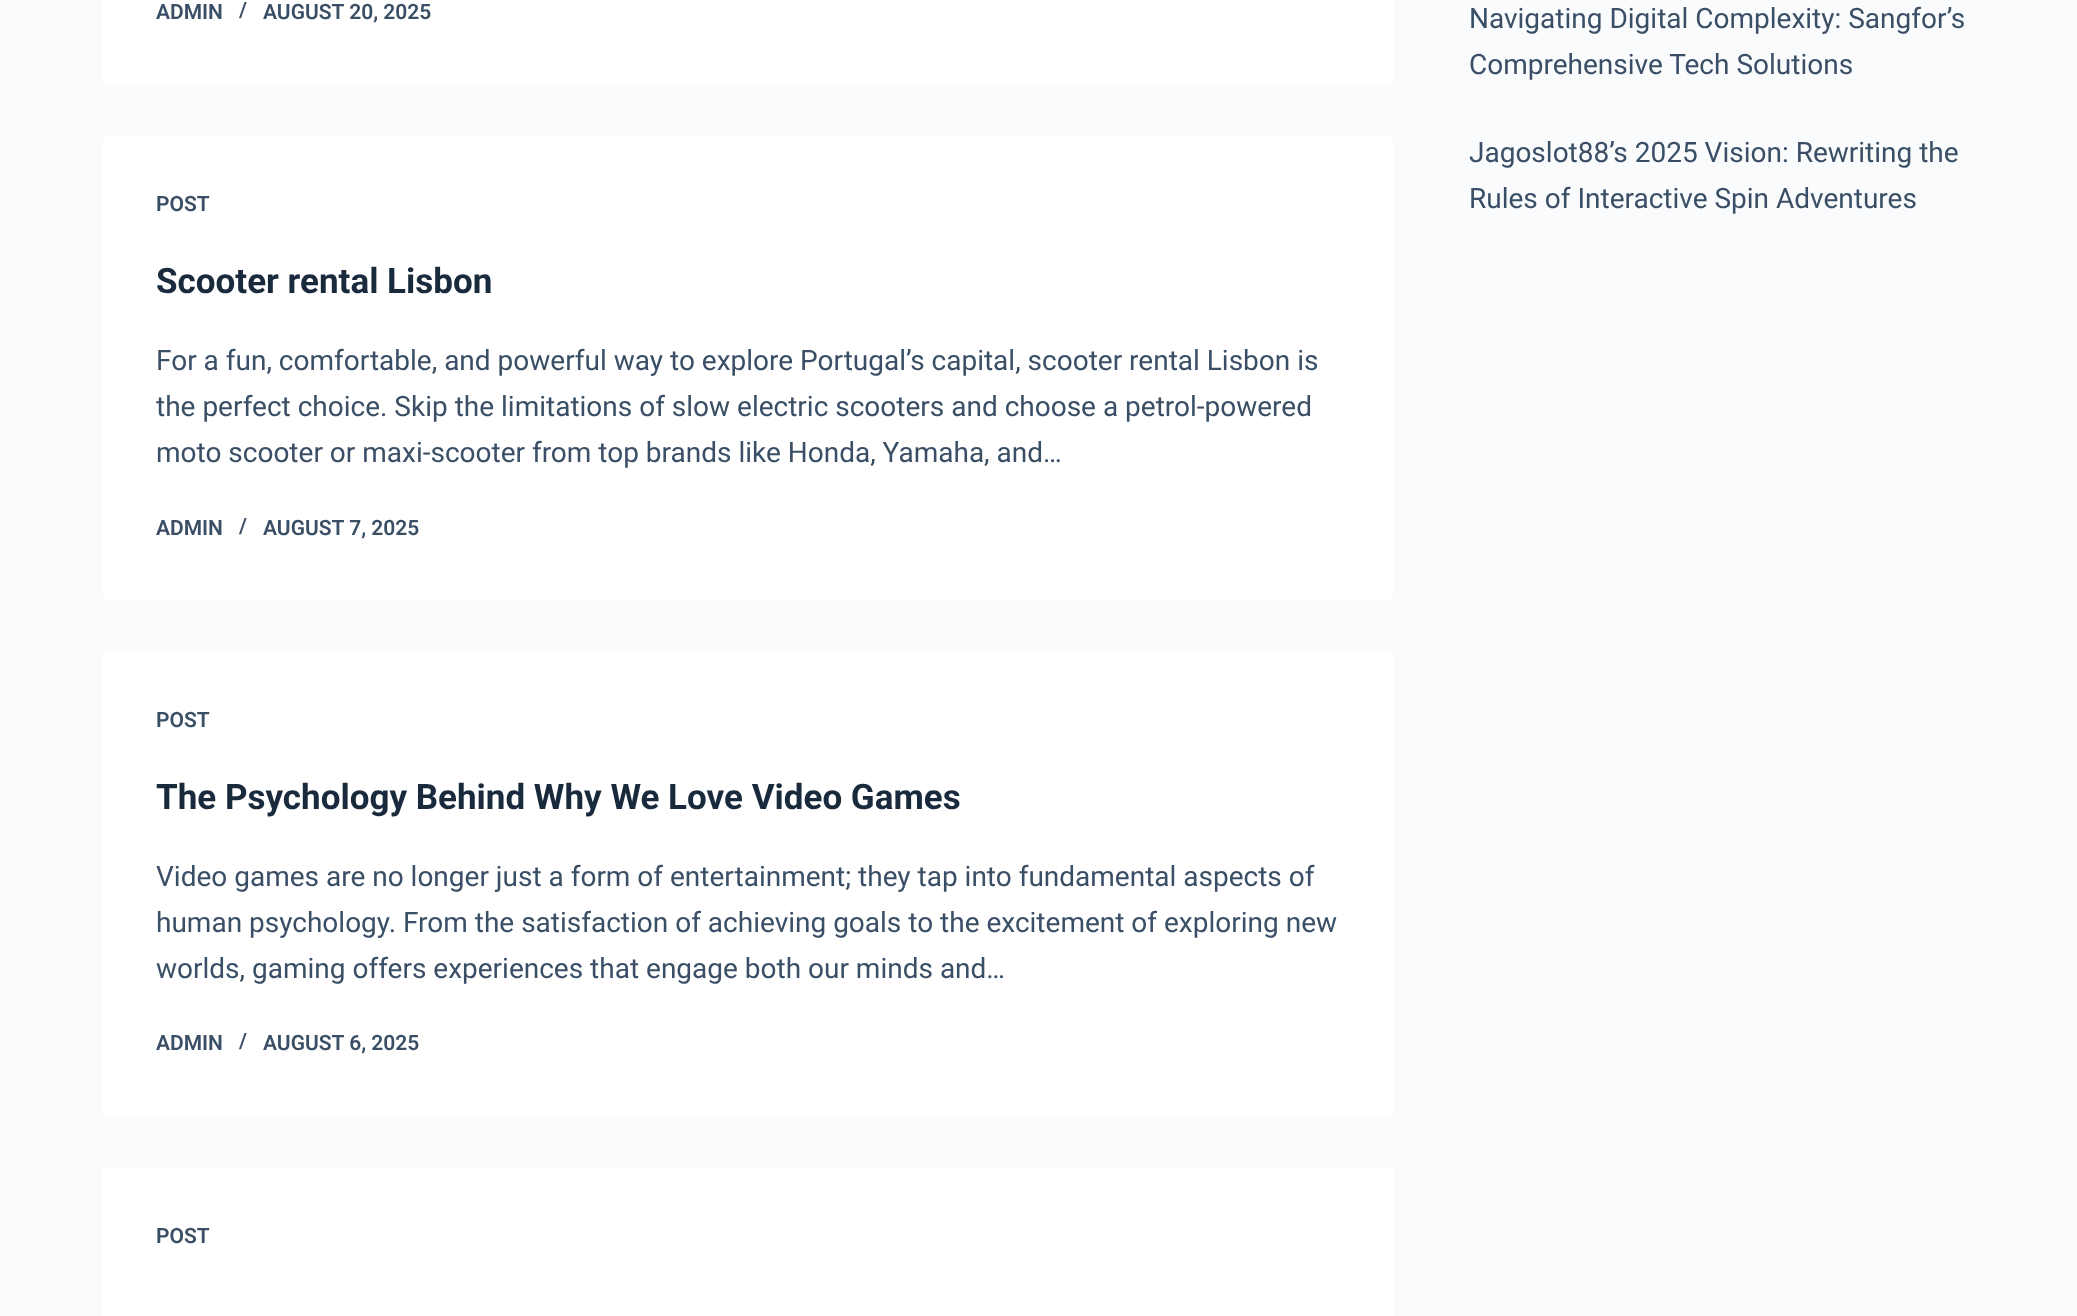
<!DOCTYPE html>
<meta charset="utf-8">
<style>body { margin: 0 } canvas { display: block }</style>
<canvas id="canvas" width="2077" height="1316"></canvas>
<script type="module">
  const canvas = document.getElementById("canvas");
  const ctx = canvas.getContext("2d");
  ctx.miterLimit = 4;
  ctx.fontKerning = "normal";

  ctx.fillStyle = "#fafbfc";
  ctx.fillRect(0, 0, 2077, 1316);
  ctx.fillStyle = "#ffffff";
  ctx.fillRect(103, 0, 1290, 84);
  ctx.font = "600 21px Roboto";
  ctx.fillStyle = "#3a4f66";
  ctx.fillText("ADMIN", 156, 19);
  ctx.fillText("/", 239, 17);
  ctx.fillText("AUGUST 20, 2025", 263, 19);
  ctx.fillStyle = "#ffffff";
  ctx.fillRect(103, 137, 1290, 462);
  ctx.fillStyle = "#3a4f66";
  ctx.fillText("POST", 156, 211);
  ctx.font = "bold 35px Roboto";
  ctx.fillStyle = "#192a3d";
  ctx.fillText("Scooter rental Lisbon", 156, 293);
  ctx.font = "28px Roboto";
  ctx.fillStyle = "#3a4f66";
  ctx.fillText("For a fun, comfortable, and powerful way to explore Portugal’s capital, scooter rental Lisbon is", 156, 370);
  ctx.fillText("the perfect choice. Skip the limitations of slow electric scooters and choose a petrol-powered", 156, 416);
  ctx.fillText("moto scooter or maxi-scooter from top brands like Honda, Yamaha, and…", 156, 462);
  ctx.font = "600 21px Roboto";
  ctx.fillText("ADMIN", 156, 535);
  ctx.fillText("/", 239, 533);
  ctx.fillText("AUGUST 7, 2025", 263, 535);
  ctx.fillStyle = "#ffffff";
  ctx.fillRect(103, 651, 1290, 464);
  ctx.fillStyle = "#3a4f66";
  ctx.fillText("POST", 156, 727);
  ctx.font = "bold 35px Roboto";
  ctx.fillStyle = "#192a3d";
  ctx.fillText("The Psychology Behind Why We Love Video Games", 156, 809);
  ctx.font = "28px Roboto";
  ctx.fillStyle = "#3a4f66";
  ctx.fillText("Video games are no longer just a form of entertainment; they tap into fundamental aspects of", 156, 886);
  ctx.fillText("human psychology. From the satisfaction of achieving goals to the excitement of exploring new", 156, 932);
  ctx.fillText("worlds, gaming offers experiences that engage both our minds and…", 156, 978);
  ctx.font = "600 21px Roboto";
  ctx.fillText("ADMIN", 156, 1050);
  ctx.fillText("/", 239, 1048);
  ctx.fillText("AUGUST 6, 2025", 263, 1050);
  ctx.fillStyle = "#ffffff";
  ctx.fillRect(103, 1167, 1290, 149);
  ctx.fillStyle = "#3a4f66";
  ctx.fillText("POST", 156, 1243);
  ctx.font = "28px Roboto";
  ctx.fillText("Navigating Digital Complexity: Sangfor’s", 1469, 28);
  ctx.fillText("Comprehensive Tech Solutions", 1469, 74);
  ctx.fillText("Jagoslot88’s 2025 Vision: Rewriting the", 1469, 162);
  ctx.fillText("Rules of Interactive Spin Adventures", 1469, 208);
</script>
